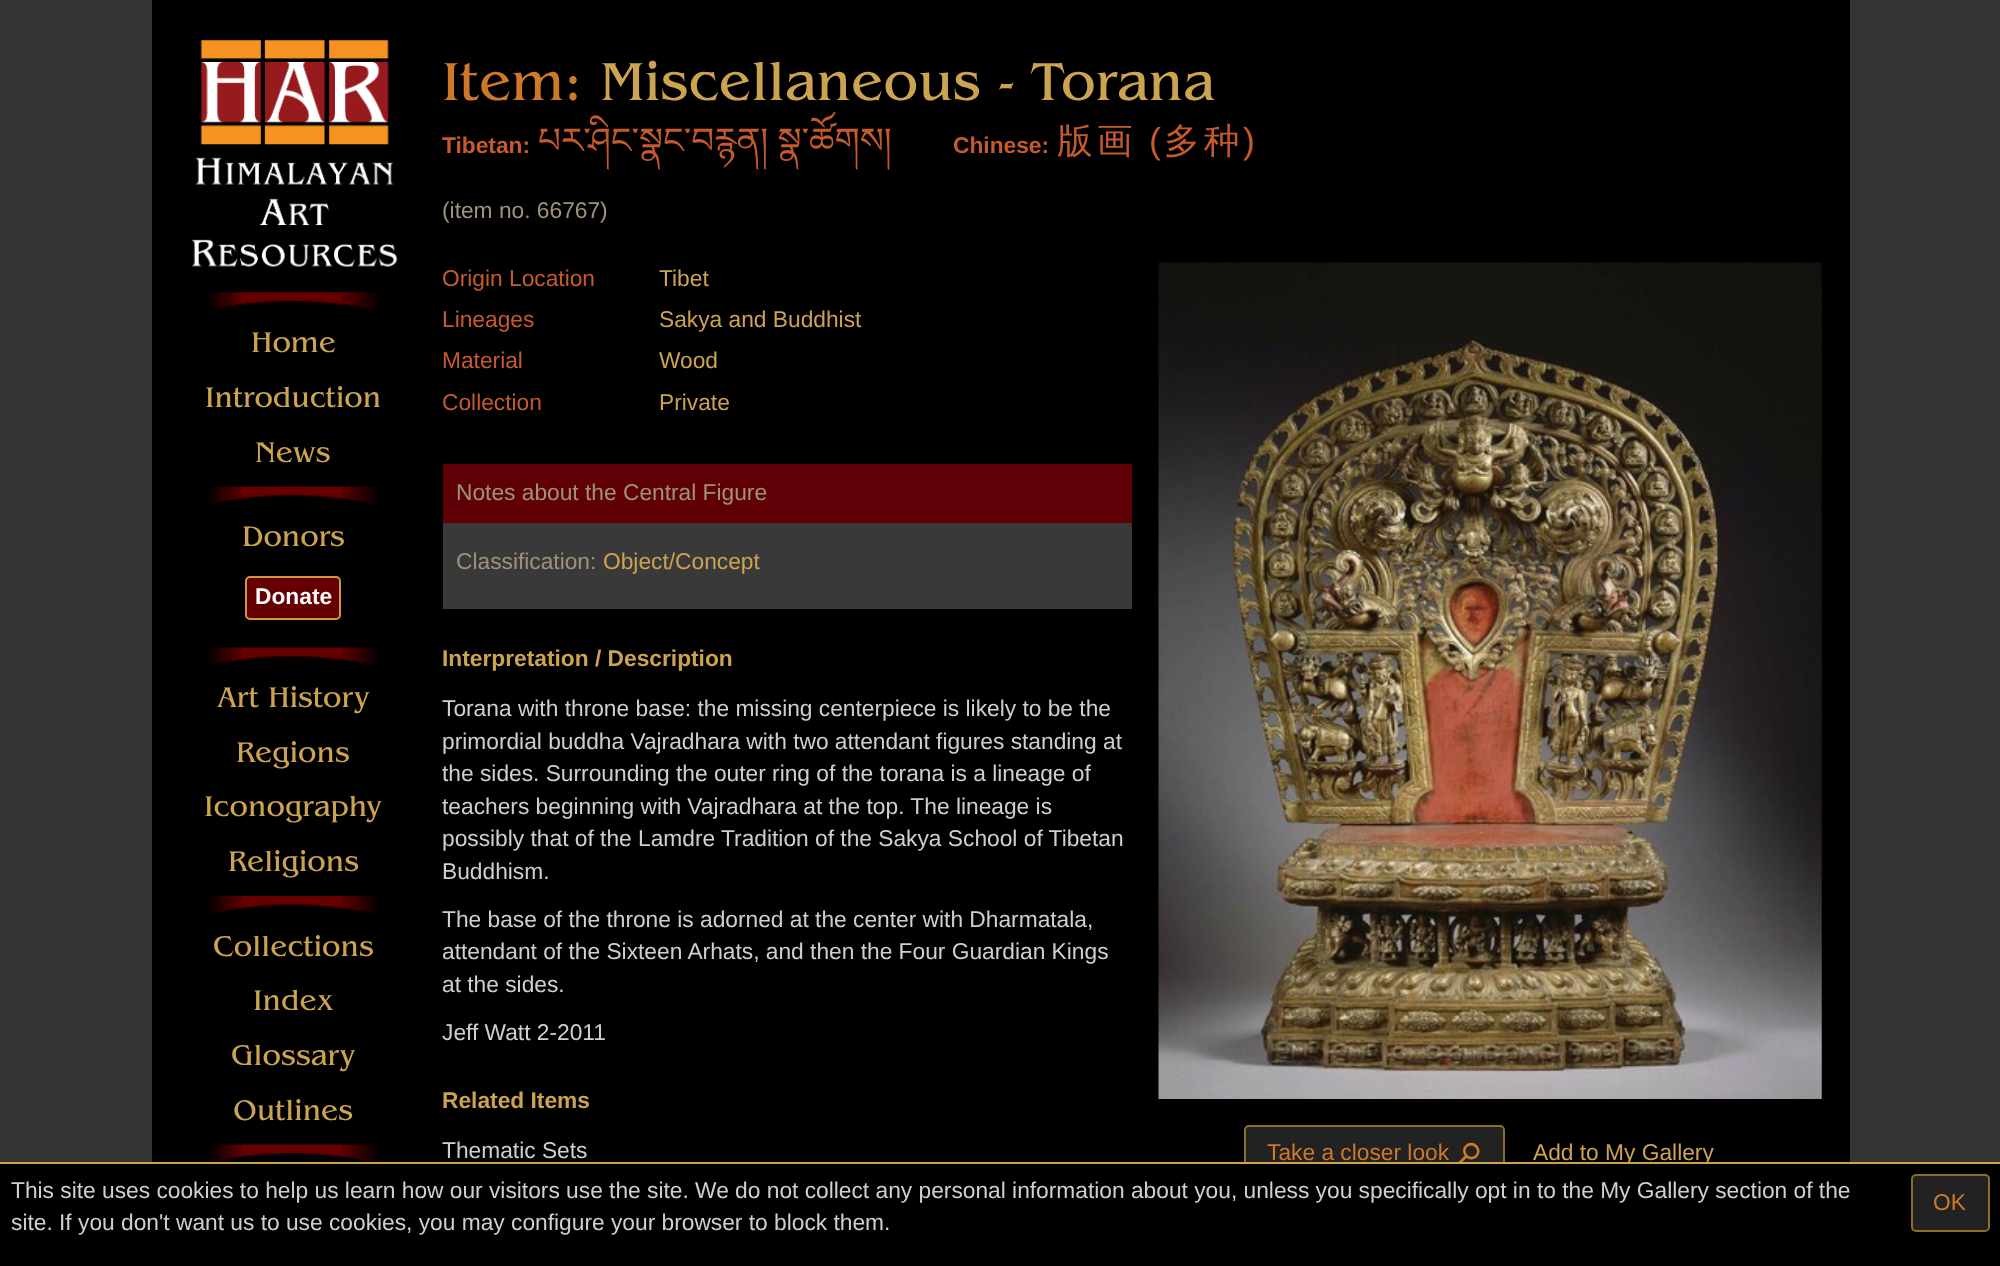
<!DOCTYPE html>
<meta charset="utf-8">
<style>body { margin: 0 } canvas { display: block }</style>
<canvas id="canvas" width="2000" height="1266"></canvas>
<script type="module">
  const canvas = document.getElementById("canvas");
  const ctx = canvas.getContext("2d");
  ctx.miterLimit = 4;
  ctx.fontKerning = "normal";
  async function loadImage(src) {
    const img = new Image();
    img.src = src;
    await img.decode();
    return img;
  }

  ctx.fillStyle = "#333333";
  ctx.fillRect(0, 0, 2000, 1266);
  ctx.fillStyle = "#000000";
  ctx.fillRect(152, 0, 1698, 1162);
  ctx.drawImage(await loadImage("img1.png"), 191, 40, 207, 227);
  ctx.drawImage(await loadImage("img2.png"), 208, 292, 172, 18);
  ctx.font = "29.75px 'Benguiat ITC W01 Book'";
  ctx.fillStyle = "#cca351";
  ctx.fillText("Home", 251, 352);
  ctx.fillText("Introduction", 205, 407);
  ctx.fillText("News", 255, 462);
  ctx.drawImage(await loadImage("img3.png"), 208, 486, 172, 18);
  ctx.fillText("Donors", 242, 546);
  ctx.fillStyle = "#660000";
  ctx.beginPath();
  ctx.roundRect(246, 577, 94, 42, 4);
  ctx.fill();
  ctx.strokeStyle = "#cf9935";
  ctx.lineWidth = 2;
  ctx.stroke();
  ctx.font = "bold 22.75px Liberation Sans";
  ctx.fillStyle = "#ffffff";
  ctx.fillText("Donate", 255, 604);
  ctx.drawImage(await loadImage("img3.png"), 208, 647, 172, 18);
  ctx.font = "29.75px 'Benguiat ITC W01 Book'";
  ctx.fillStyle = "#cca351";
  ctx.fillText("Art History", 217, 707);
  ctx.fillText("Regions", 236, 762);
  ctx.fillText("Iconography", 204, 816);
  ctx.fillText("Religions", 228, 871);
  ctx.drawImage(await loadImage("img4.png"), 208, 896, 172, 18);
  ctx.fillText("Collections", 213, 956);
  ctx.fillText("Index", 253, 1010);
  ctx.fillText("Glossary", 231, 1065);
  ctx.fillText("Outlines", 233, 1120);
  ctx.drawImage(await loadImage("img3.png"), 208, 1144, 172, 18);
  ctx.font = "56px 'Benguiat ITC W01 Book'";
  ctx.fillStyle = "#cc792a";
  ctx.fillText("Item:", 442, 100);
  ctx.fillStyle = "#cca351";
  ctx.fillText("Miscellaneous - Torana", 600, 100);
  ctx.font = "bold 22.75px Liberation Sans";
  ctx.fillStyle = "#c65a2d";
  ctx.fillText("Tibetan:", 442, 153);
  ctx.font = "35.75px Noto Serif Tibetan";
  ctx.fillText("པར་ཤིང་སྣང་བརྙན། སྣ་ཚོགས།", 538, 153);
  ctx.font = "bold 22.75px Liberation Sans";
  ctx.fillText("Chinese:", 953, 153);
  ctx.letterSpacing = "4px";
  ctx.font = "500 35.75px WenQuanYi Zen Hei";
  ctx.fillText("版画", 1057, 153);
  ctx.font = "35.75px Liberation Sans";
  ctx.fillText("(", 1149, 153);
  ctx.font = "500 35.75px WenQuanYi Zen Hei";
  ctx.fillText("多种", 1164, 153);
  ctx.font = "35.75px Liberation Sans";
  ctx.fillText(")", 1243, 153);
  ctx.letterSpacing = "0px";
  ctx.font = "22.75px Liberation Sans";
  ctx.fillStyle = "#9f927a";
  ctx.fillText("(item no. 66767)", 442, 218);
  ctx.fillStyle = "#c65a2d";
  ctx.fillText("Origin Location", 442, 286);
  ctx.fillStyle = "#cca351";
  ctx.fillText("Tibet", 659, 286);
  ctx.fillStyle = "#c65a2d";
  ctx.fillText("Lineages", 442, 327);
  ctx.fillStyle = "#cca351";
  ctx.fillText("Sakya and Buddhist", 659, 327);
  ctx.fillStyle = "#c65a2d";
  ctx.fillText("Material", 442, 368);
  ctx.fillStyle = "#cca351";
  ctx.fillText("Wood", 659, 368);
  ctx.fillStyle = "#c65a2d";
  ctx.fillText("Collection", 442, 410);
  ctx.fillStyle = "#cca351";
  ctx.fillText("Private", 659, 410);
  ctx.fillStyle = "#393939";
  ctx.fillRect(443, 523, 689, 86);
  ctx.fillStyle = "#5e0005";
  ctx.fillRect(443, 464, 689, 59);
  ctx.fillStyle = "#9f927a";
  ctx.fillText("Notes about the Central Figure", 456, 500);
  ctx.fillText("Classification:", 456, 569);
  ctx.fillStyle = "#cca351";
  ctx.fillText("Object/Concept", 603, 569);
  ctx.font = "bold 22.75px Liberation Sans";
  ctx.fillText("Interpretation / Description", 442, 666);
  ctx.font = "22.75px Liberation Sans";
  ctx.fillStyle = "#cfcfcf";
  ctx.fillText("Torana with throne base: the missing centerpiece is likely to be the", 442, 716);
  ctx.fillText("primordial buddha Vajradhara with two attendant figures standing at", 442, 749);
  ctx.fillText("the sides. Surrounding the outer ring of the torana is a lineage of", 442, 781);
  ctx.fillText("teachers beginning with Vajradhara at the top. The lineage is", 442, 814);
  ctx.fillText("possibly that of the Lamdre Tradition of the Sakya School of Tibetan", 442, 846);
  ctx.fillText("Buddhism.", 442, 879);
  ctx.fillText("The base of the throne is adorned at the center with Dharmatala,", 442, 927);
  ctx.fillText("attendant of the Sixteen Arhats, and then the Four Guardian Kings", 442, 959);
  ctx.fillText("at the sides.", 442, 992);
  ctx.fillText("Jeff Watt 2-2011", 442, 1040);
  ctx.font = "bold 22.75px Liberation Sans";
  ctx.fillStyle = "#cca351";
  ctx.fillText("Related Items", 442, 1108);
  ctx.font = "22.75px Liberation Sans";
  ctx.fillStyle = "#cfcfcf";
  ctx.fillText("Thematic Sets", 442, 1158);
  ctx.drawImage(await loadImage("img5.png"), 1158, 262, 664, 837);
  ctx.fillStyle = "#222222";
  ctx.beginPath();
  ctx.roundRect(1245, 1126, 259, 56, 4);
  ctx.fill();
  ctx.strokeStyle = "#8e6c29";
  ctx.stroke();
  ctx.fillStyle = "#cc792a";
  ctx.fillText("Take a closer look", 1267, 1160);
  ctx.font = "29.75px DejaVu Sans";
  ctx.save();
  ctx.translate(1454, 1153);
  ctx.rotate(45 * Math.PI / 180);
  ctx.fillText("⚲", 0, 0);
  ctx.restore();
  ctx.font = "22.75px Liberation Sans";
  ctx.fillStyle = "#cca351";
  ctx.fillText("Add to My Gallery", 1533, 1160);
  ctx.fillStyle = "#000000";
  ctx.fillRect(0, 1164, 2000, 102);
  ctx.fillStyle = "#cca351";
  ctx.fillRect(0, 1162, 2000, 2);
  ctx.fillStyle = "#cfcfcf";
  ctx.fillText("This site uses cookies to help us learn how our visitors use the site. We do not collect any personal information about you, unless you specifically opt in to the My Gallery section of the", 11, 1198);
  ctx.fillText("site. If you don't want us to use cookies, you may configure your browser to block them.", 11, 1230);
  ctx.fillStyle = "#222222";
  ctx.beginPath();
  ctx.roundRect(1912, 1175, 77, 56, 4);
  ctx.fill();
  ctx.stroke();
  ctx.fillStyle = "#cc792a";
  ctx.fillText("OK", 1933, 1210);
</script>
